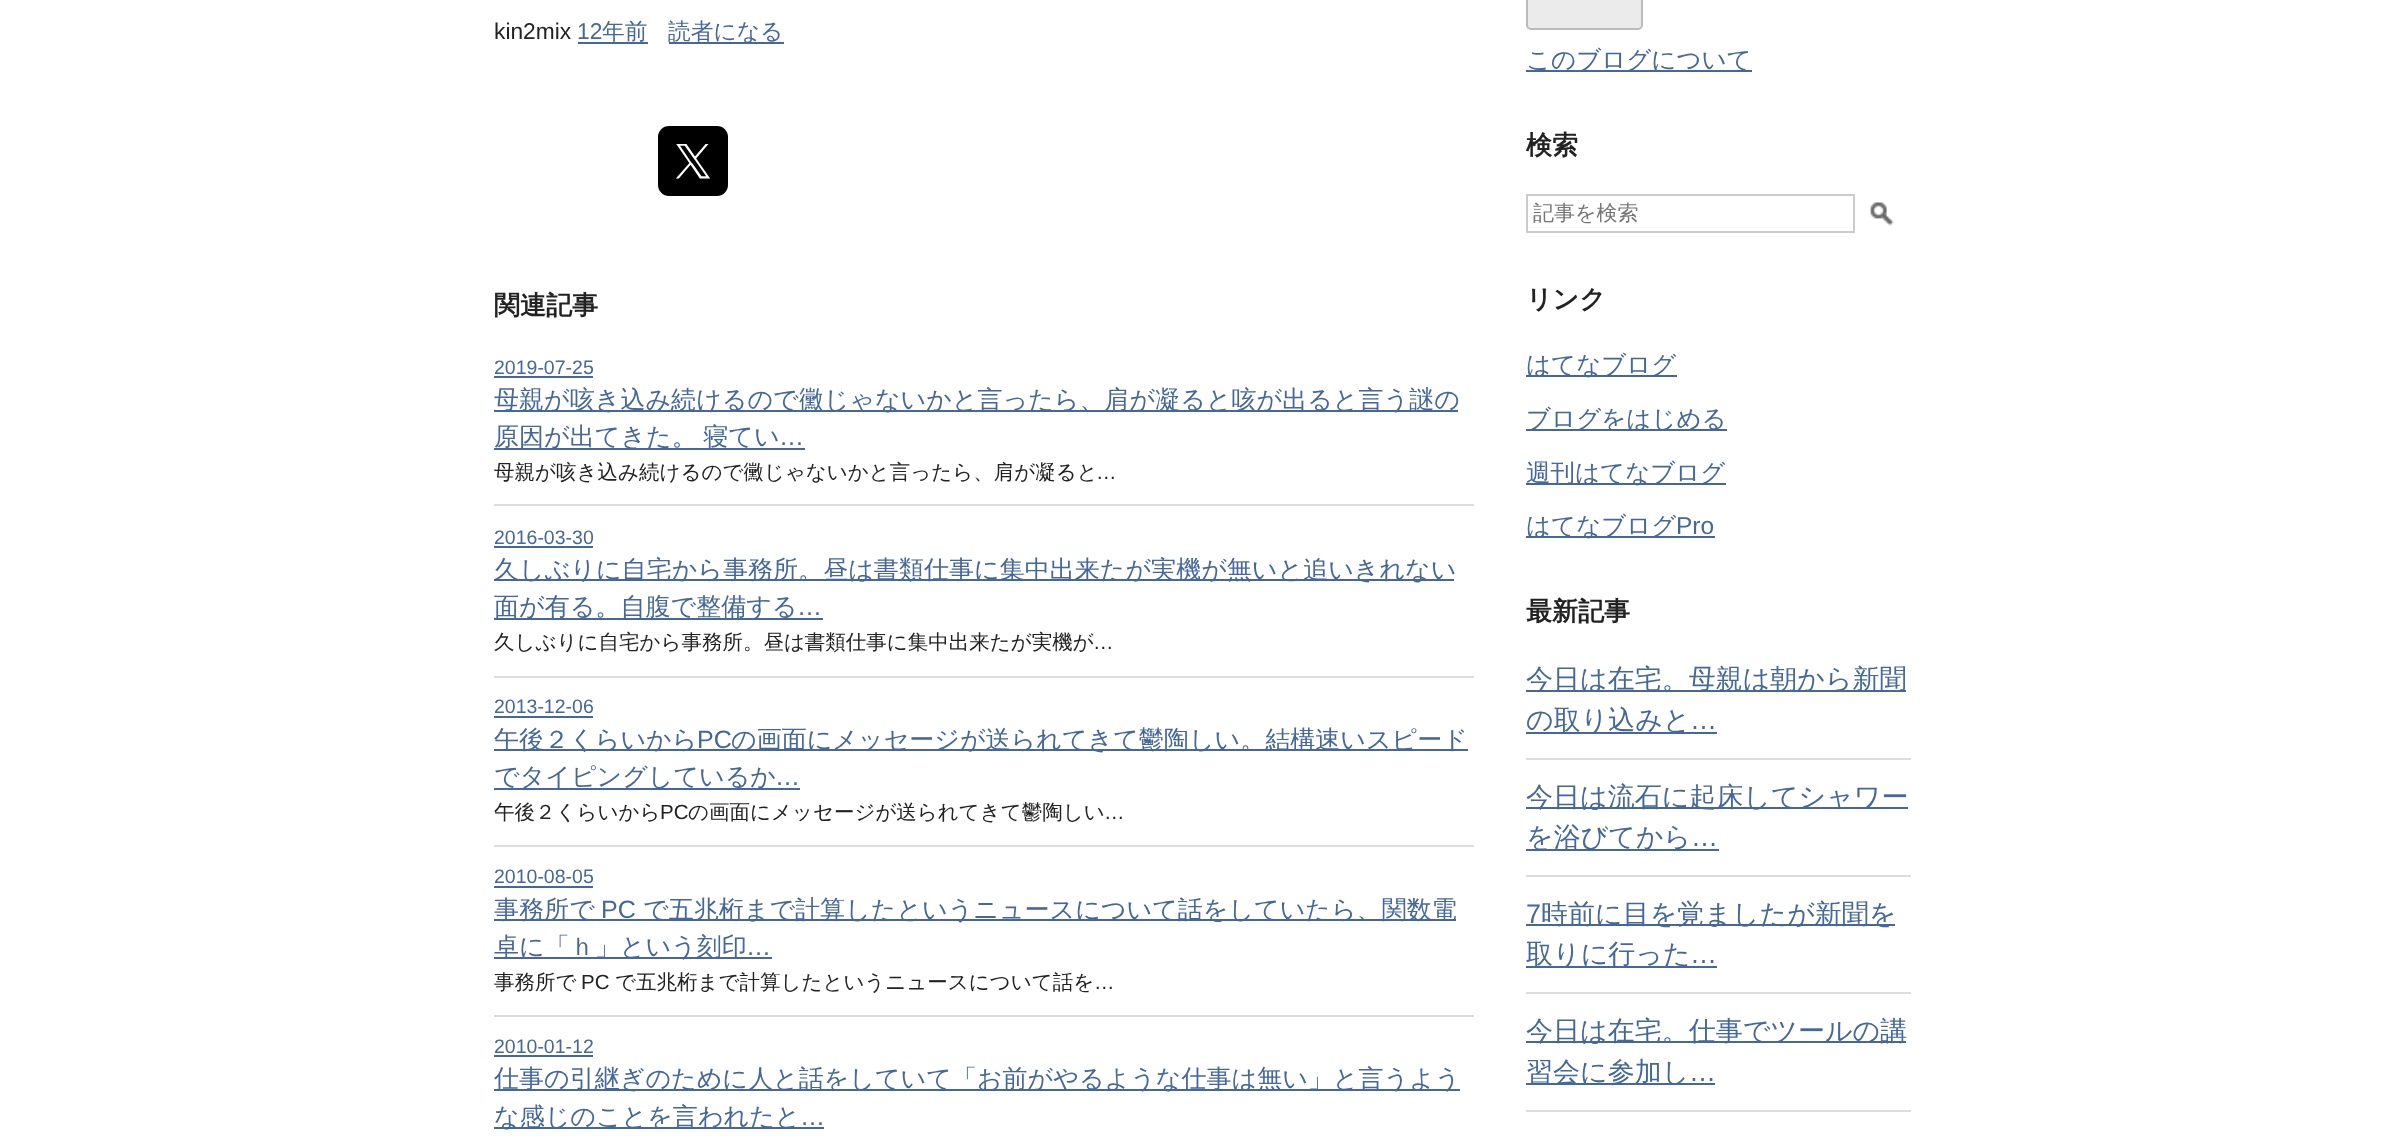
<!DOCTYPE html>
<meta charset="utf-8">
<style>body { margin: 0 } canvas { display: block }</style>
<canvas id="canvas" width="2403" height="1136"></canvas>
<script type="module">
  const canvas = document.getElementById("canvas");
  const ctx = canvas.getContext("2d");
  ctx.miterLimit = 4;
  ctx.fontKerning = "normal";
  async function loadImage(src) {
    const img = new Image();
    img.src = src;
    await img.decode();
    return img;
  }

  ctx.fillStyle = "#ffffff";
  ctx.fillRect(0, 0, 2403, 1136);
  ctx.font = "22.75px Liberation Sans";
  ctx.fillStyle = "#222222";
  ctx.fillText("kin2mix", 494, 39);
  ctx.fillStyle = "#456898";
  ctx.fillText("12", 577, 39);
  ctx.fillRect(578, 42, 70, 2);
  ctx.font = "500 22.75px WenQuanYi Zen Hei";
  ctx.fillText("年前", 602, 39);
  ctx.fillRect(669, 42, 115, 2);
  ctx.fillText("読者になる", 668, 39);
  ctx.fillStyle = "#000000";
  ctx.beginPath();
  ctx.roundRect(658, 126, 70, 70, 11);
  ctx.fill();
  ctx.drawImage(await loadImage("img1.png"), 676, 144, 34, 35);
  ctx.font = "bold 26px WenQuanYi Zen Hei";
  ctx.fillStyle = "#222222";
  ctx.fillText("関連記事", 494, 314);
  ctx.fillStyle = "#dddddd";
  ctx.fillRect(494, 504, 980, 2);
  ctx.font = "19.5px Liberation Sans";
  ctx.fillStyle = "#456898";
  ctx.fillText("2019-07-25", 494, 374);
  ctx.fillRect(494, 376, 99, 2);
  ctx.fillRect(494, 410, 964, 2);
  ctx.font = "500 25.05px WenQuanYi Zen Hei";
  ctx.fillText("母親が咳き込み続けるので黴じゃないかと言ったら、肩が凝ると咳が出ると言う謎の", 494, 408);
  ctx.fillRect(494, 448, 311, 2);
  ctx.wordSpacing = "-1px";
  ctx.fillText("原因が出てきた。 寝てい", 494, 445);
  ctx.wordSpacing = "0px";
  ctx.font = "25.05px Liberation Sans";
  ctx.fillText("…", 779, 445);
  ctx.font = "500 20.5px WenQuanYi Zen Hei";
  ctx.fillStyle = "#222222";
  ctx.fillText("母親が咳き込み続けるので黴じゃないかと言ったら、肩が凝ると", 494, 479);
  ctx.font = "20.5px Liberation Sans";
  ctx.fillText("…", 1096, 479);
  ctx.fillStyle = "#dddddd";
  ctx.fillRect(494, 676, 980, 2);
  ctx.font = "19.5px Liberation Sans";
  ctx.fillStyle = "#456898";
  ctx.fillText("2016-03-30", 494, 544);
  ctx.fillRect(494, 546, 99, 2);
  ctx.fillRect(494, 579, 960, 2);
  ctx.font = "500 25.05px WenQuanYi Zen Hei";
  ctx.fillText("久しぶりに自宅から事務所。昼は書類仕事に集中出来たが実機が無いと追いきれない", 494, 578);
  ctx.fillRect(494, 618, 329, 2);
  ctx.fillText("面が有る。自腹で整備する", 494, 615);
  ctx.font = "25.05px Liberation Sans";
  ctx.fillText("…", 797, 615);
  ctx.font = "500 20.5px WenQuanYi Zen Hei";
  ctx.fillStyle = "#222222";
  ctx.fillText("久しぶりに自宅から事務所。昼は書類仕事に集中出来たが実機が", 494, 649);
  ctx.font = "20.5px Liberation Sans";
  ctx.fillText("…", 1093, 649);
  ctx.fillStyle = "#dddddd";
  ctx.fillRect(494, 845, 980, 2);
  ctx.font = "19.5px Liberation Sans";
  ctx.fillStyle = "#456898";
  ctx.fillText("2013-12-06", 494, 713);
  ctx.fillRect(494, 716, 99, 2);
  ctx.fillRect(494, 749, 974, 2);
  ctx.font = "500 25.05px WenQuanYi Zen Hei";
  ctx.fillText("午後２くらいから", 494, 748);
  ctx.font = "25.05px Liberation Sans";
  ctx.fillText("PC", 697, 748);
  ctx.font = "500 25.05px WenQuanYi Zen Hei";
  ctx.fillText("の画面にメッセージが送られてきて鬱陶しい。結構速いスピード", 731, 748);
  ctx.fillRect(494, 788, 306, 2);
  ctx.fillText("でタイピングしているか", 494, 785);
  ctx.font = "25.05px Liberation Sans";
  ctx.fillText("…", 775, 785);
  ctx.font = "500 20.5px WenQuanYi Zen Hei";
  ctx.fillStyle = "#222222";
  ctx.fillText("午後２くらいから", 494, 819);
  ctx.font = "20.5px Liberation Sans";
  ctx.fillText("PC", 660, 819);
  ctx.font = "500 20.5px WenQuanYi Zen Hei";
  ctx.fillText("の画面にメッセージが送られてきて鬱陶しい", 688, 819);
  ctx.font = "20.5px Liberation Sans";
  ctx.fillText("…", 1104, 819);
  ctx.fillStyle = "#dddddd";
  ctx.fillRect(494, 1015, 980, 2);
  ctx.font = "19.5px Liberation Sans";
  ctx.fillStyle = "#456898";
  ctx.fillText("2010-08-05", 494, 883);
  ctx.fillRect(494, 886, 99, 2);
  ctx.fillRect(494, 919, 962, 2);
  ctx.font = "500 25.05px WenQuanYi Zen Hei";
  ctx.fillText("事務所で", 494, 918);
  ctx.font = "25.05px Liberation Sans";
  ctx.fillText("PC", 601, 918);
  ctx.font = "500 25.05px WenQuanYi Zen Hei";
  ctx.fillText("で五兆桁まで計算したというニュースについて話をしていたら、関数電", 643, 918);
  ctx.fillRect(494, 957, 278, 2);
  ctx.fillText("卓に「ｈ」という刻印", 494, 955);
  ctx.font = "25.05px Liberation Sans";
  ctx.fillText("…", 746, 955);
  ctx.font = "500 20.5px WenQuanYi Zen Hei";
  ctx.fillStyle = "#222222";
  ctx.fillText("事務所で", 494, 989);
  ctx.font = "20.5px Liberation Sans";
  ctx.fillText("PC", 581, 989);
  ctx.font = "500 20.5px WenQuanYi Zen Hei";
  ctx.fillText("で五兆桁まで計算したというニュースについて話を", 615, 989);
  ctx.font = "20.5px Liberation Sans";
  ctx.fillText("…", 1094, 989);
  ctx.font = "19.5px Liberation Sans";
  ctx.fillStyle = "#456898";
  ctx.fillText("2010-01-12", 494, 1053);
  ctx.fillRect(494, 1055, 99, 2);
  ctx.fillRect(494, 1089, 966, 2);
  ctx.font = "500 25.05px WenQuanYi Zen Hei";
  ctx.fillText("仕事の引継ぎのために人と話をしていて「お前がやるような仕事は無い」と言うよう", 494, 1087);
  ctx.fillRect(494, 1127, 330, 2);
  ctx.fillText("な感じのことを言われたと", 494, 1125);
  ctx.font = "25.05px Liberation Sans";
  ctx.fillText("…", 800, 1125);
  ctx.fillStyle = "#ebebeb";
  ctx.beginPath();
  ctx.roundRect(1527, -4, 115, 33, 4);
  ctx.fill();
  ctx.strokeStyle = "#bbbbbb";
  ctx.lineWidth = 2;
  ctx.stroke();
  ctx.fillStyle = "#456898";
  ctx.fillRect(1526, 70, 226, 2);
  ctx.font = "500 24.5px WenQuanYi Zen Hei";
  ctx.fillText("このブログについて", 1526, 68);
  ctx.font = "bold 26px WenQuanYi Zen Hei";
  ctx.fillStyle = "#222222";
  ctx.fillText("検索", 1526, 154);
  ctx.strokeStyle = "#cccccc";
  ctx.strokeRect(1527, 195, 327, 37);
  ctx.font = "500 21px WenQuanYi Zen Hei";
  ctx.fillStyle = "#757575";
  ctx.fillText("記事を検索", 1533, 220);
  ctx.drawImage(await loadImage("img2.png"), 1870, 202, 24, 24);
  ctx.font = "bold 26px WenQuanYi Zen Hei";
  ctx.fillStyle = "#222222";
  ctx.fillText("リンク", 1526, 308);
  ctx.fillStyle = "#456898";
  ctx.fillRect(1526, 375, 151, 2);
  ctx.font = "500 24.5px WenQuanYi Zen Hei";
  ctx.fillText("はてなブログ", 1526, 373);
  ctx.fillRect(1526, 429, 201, 2);
  ctx.fillText("ブログをはじめる", 1526, 427);
  ctx.fillRect(1526, 483, 200, 2);
  ctx.fillText("週刊はてなブログ", 1526, 481);
  ctx.fillRect(1526, 536, 189, 2);
  ctx.fillText("はてなブログ", 1526, 534);
  ctx.font = "24.5px Liberation Sans";
  ctx.fillText("Pro", 1676, 534);
  ctx.font = "bold 26px WenQuanYi Zen Hei";
  ctx.fillStyle = "#222222";
  ctx.fillText("最新記事", 1526, 620);
  ctx.fillStyle = "#dddddd";
  ctx.fillRect(1526, 758, 385, 2);
  ctx.fillStyle = "#456898";
  ctx.fillRect(1526, 690, 380, 2);
  ctx.font = "500 27px WenQuanYi Zen Hei";
  ctx.fillText("今日は在宅。母親は朝から新聞", 1526, 688);
  ctx.fillRect(1526, 732, 191, 2);
  ctx.fillText("の取り込みと", 1526, 729);
  ctx.font = "27px Liberation Sans";
  ctx.fillText("…", 1690, 729);
  ctx.fillStyle = "#dddddd";
  ctx.fillRect(1526, 875, 385, 2);
  ctx.fillStyle = "#456898";
  ctx.fillRect(1526, 807, 382, 2);
  ctx.font = "500 27px WenQuanYi Zen Hei";
  ctx.fillText("今日は流石に起床してシャワー", 1526, 806);
  ctx.fillRect(1526, 849, 193, 2);
  ctx.fillText("を浴びてから", 1526, 846);
  ctx.font = "27px Liberation Sans";
  ctx.fillText("…", 1691, 846);
  ctx.fillStyle = "#dddddd";
  ctx.fillRect(1526, 992, 385, 2);
  ctx.fillStyle = "#456898";
  ctx.fillText("7", 1526, 923);
  ctx.fillRect(1526, 924, 369, 2);
  ctx.font = "500 27px WenQuanYi Zen Hei";
  ctx.fillText("時前に目を覚ましたが新聞を", 1541, 923);
  ctx.fillRect(1526, 966, 191, 2);
  ctx.fillText("取りに行った", 1526, 963);
  ctx.font = "27px Liberation Sans";
  ctx.fillText("…", 1690, 963);
  ctx.fillStyle = "#dddddd";
  ctx.fillRect(1526, 1110, 385, 2);
  ctx.fillStyle = "#456898";
  ctx.fillRect(1526, 1041, 380, 2);
  ctx.font = "500 27px WenQuanYi Zen Hei";
  ctx.fillText("今日は在宅。仕事でツールの講", 1526, 1040);
  ctx.fillRect(1526, 1083, 189, 2);
  ctx.fillText("習会に参加し", 1526, 1081);
  ctx.font = "27px Liberation Sans";
  ctx.fillText("…", 1689, 1081);
</script>
